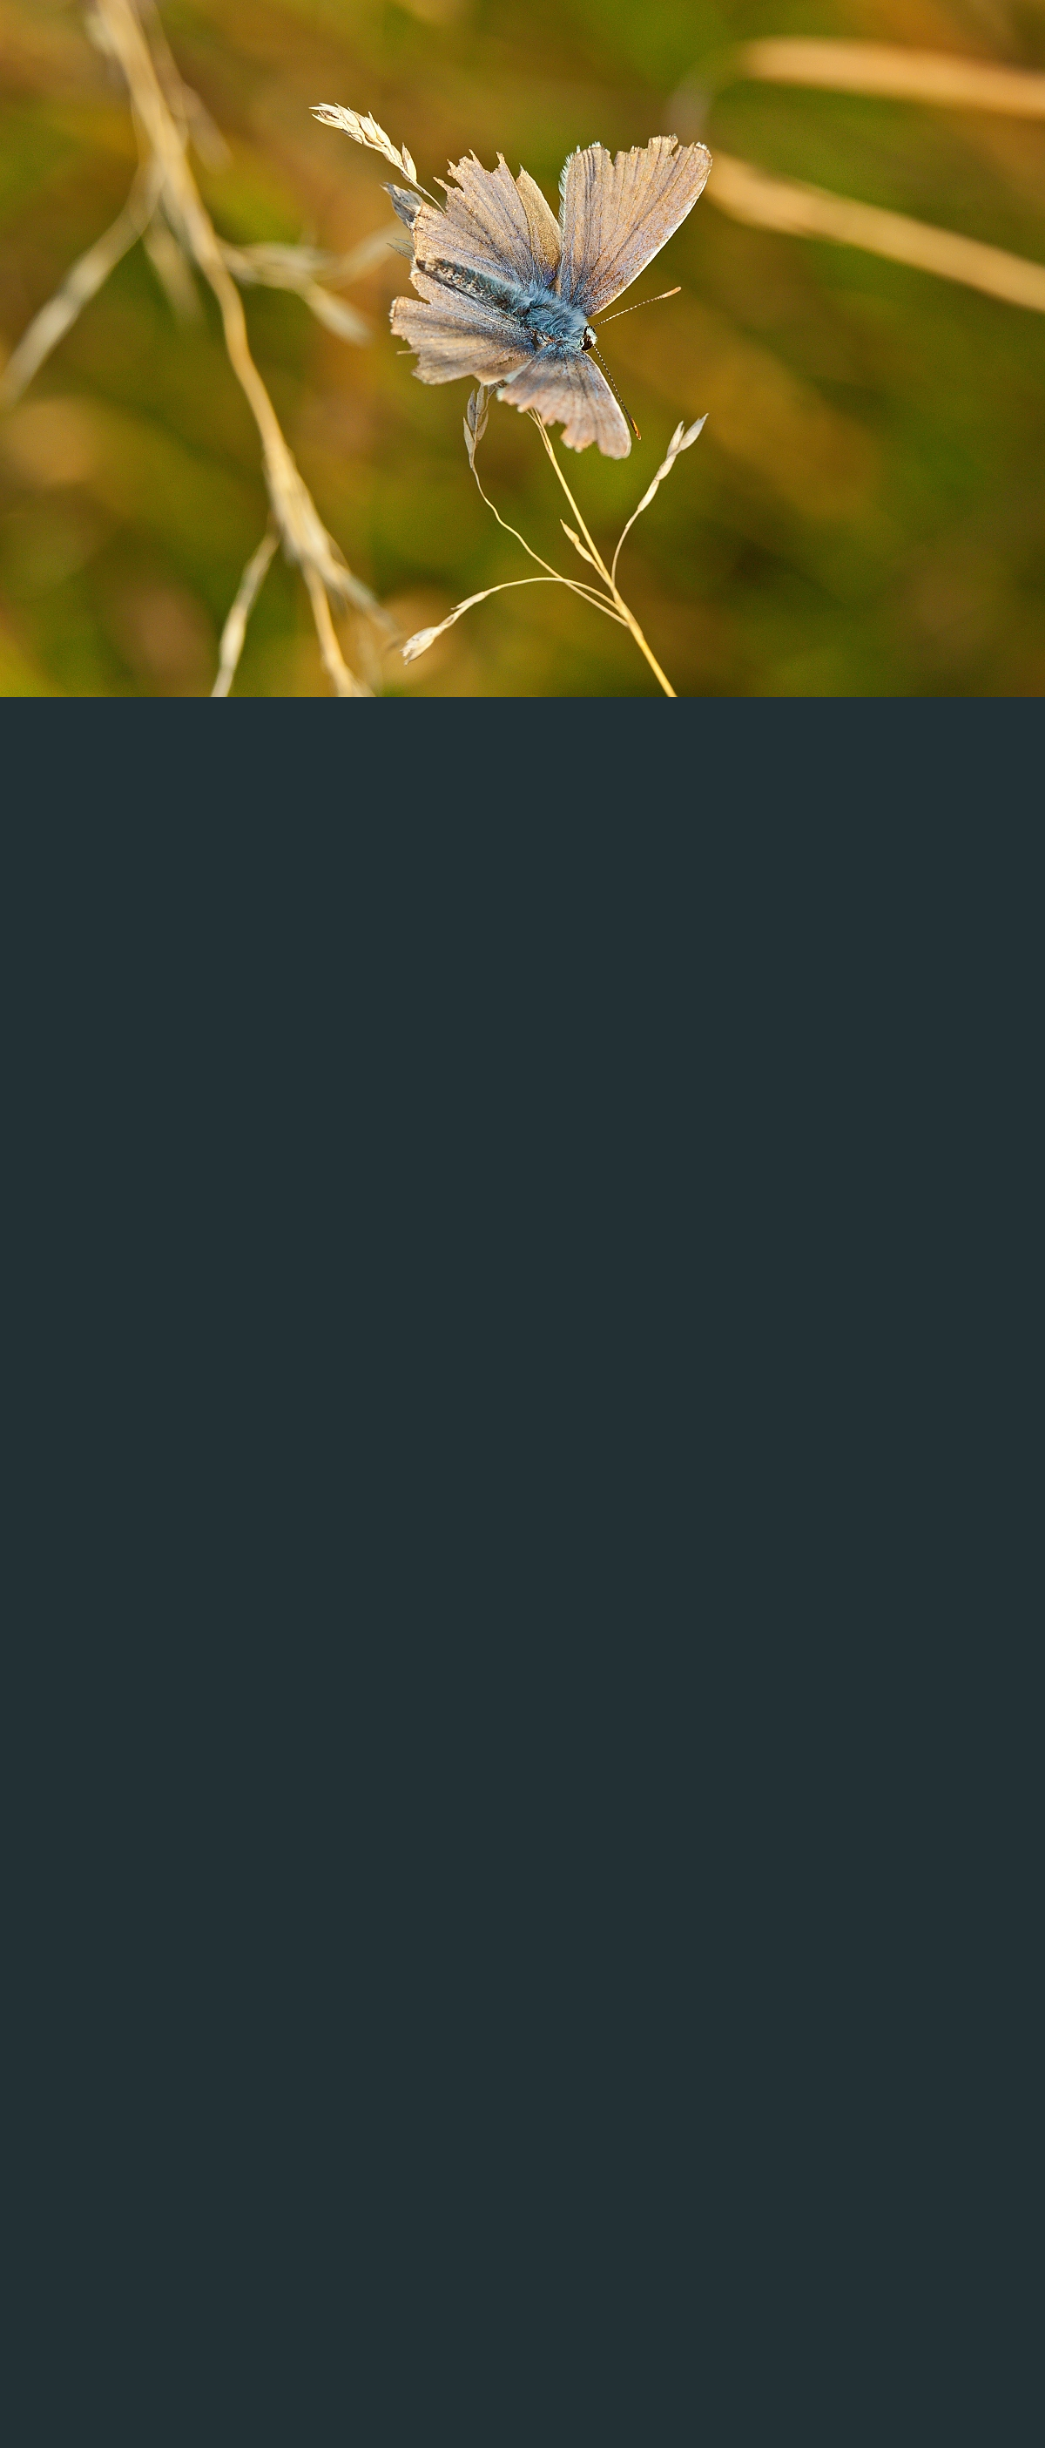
<!DOCTYPE html>
<meta charset="utf-8">
<style>body { margin: 0 } canvas { display: block }</style>
<canvas id="canvas" width="1045" height="2448"></canvas>
<script type="module">
  const canvas = document.getElementById("canvas");
  const ctx = canvas.getContext("2d");
  ctx.miterLimit = 4;
  ctx.fontKerning = "normal";
  async function loadImage(src) {
    const img = new Image();
    img.src = src;
    await img.decode();
    return img;
  }

  ctx.fillStyle = "#223034";
  ctx.fillRect(0, 0, 1045, 2448);
  ctx.drawImage(await loadImage("img1.png"), 0, 0, 1045, 697);
</script>
